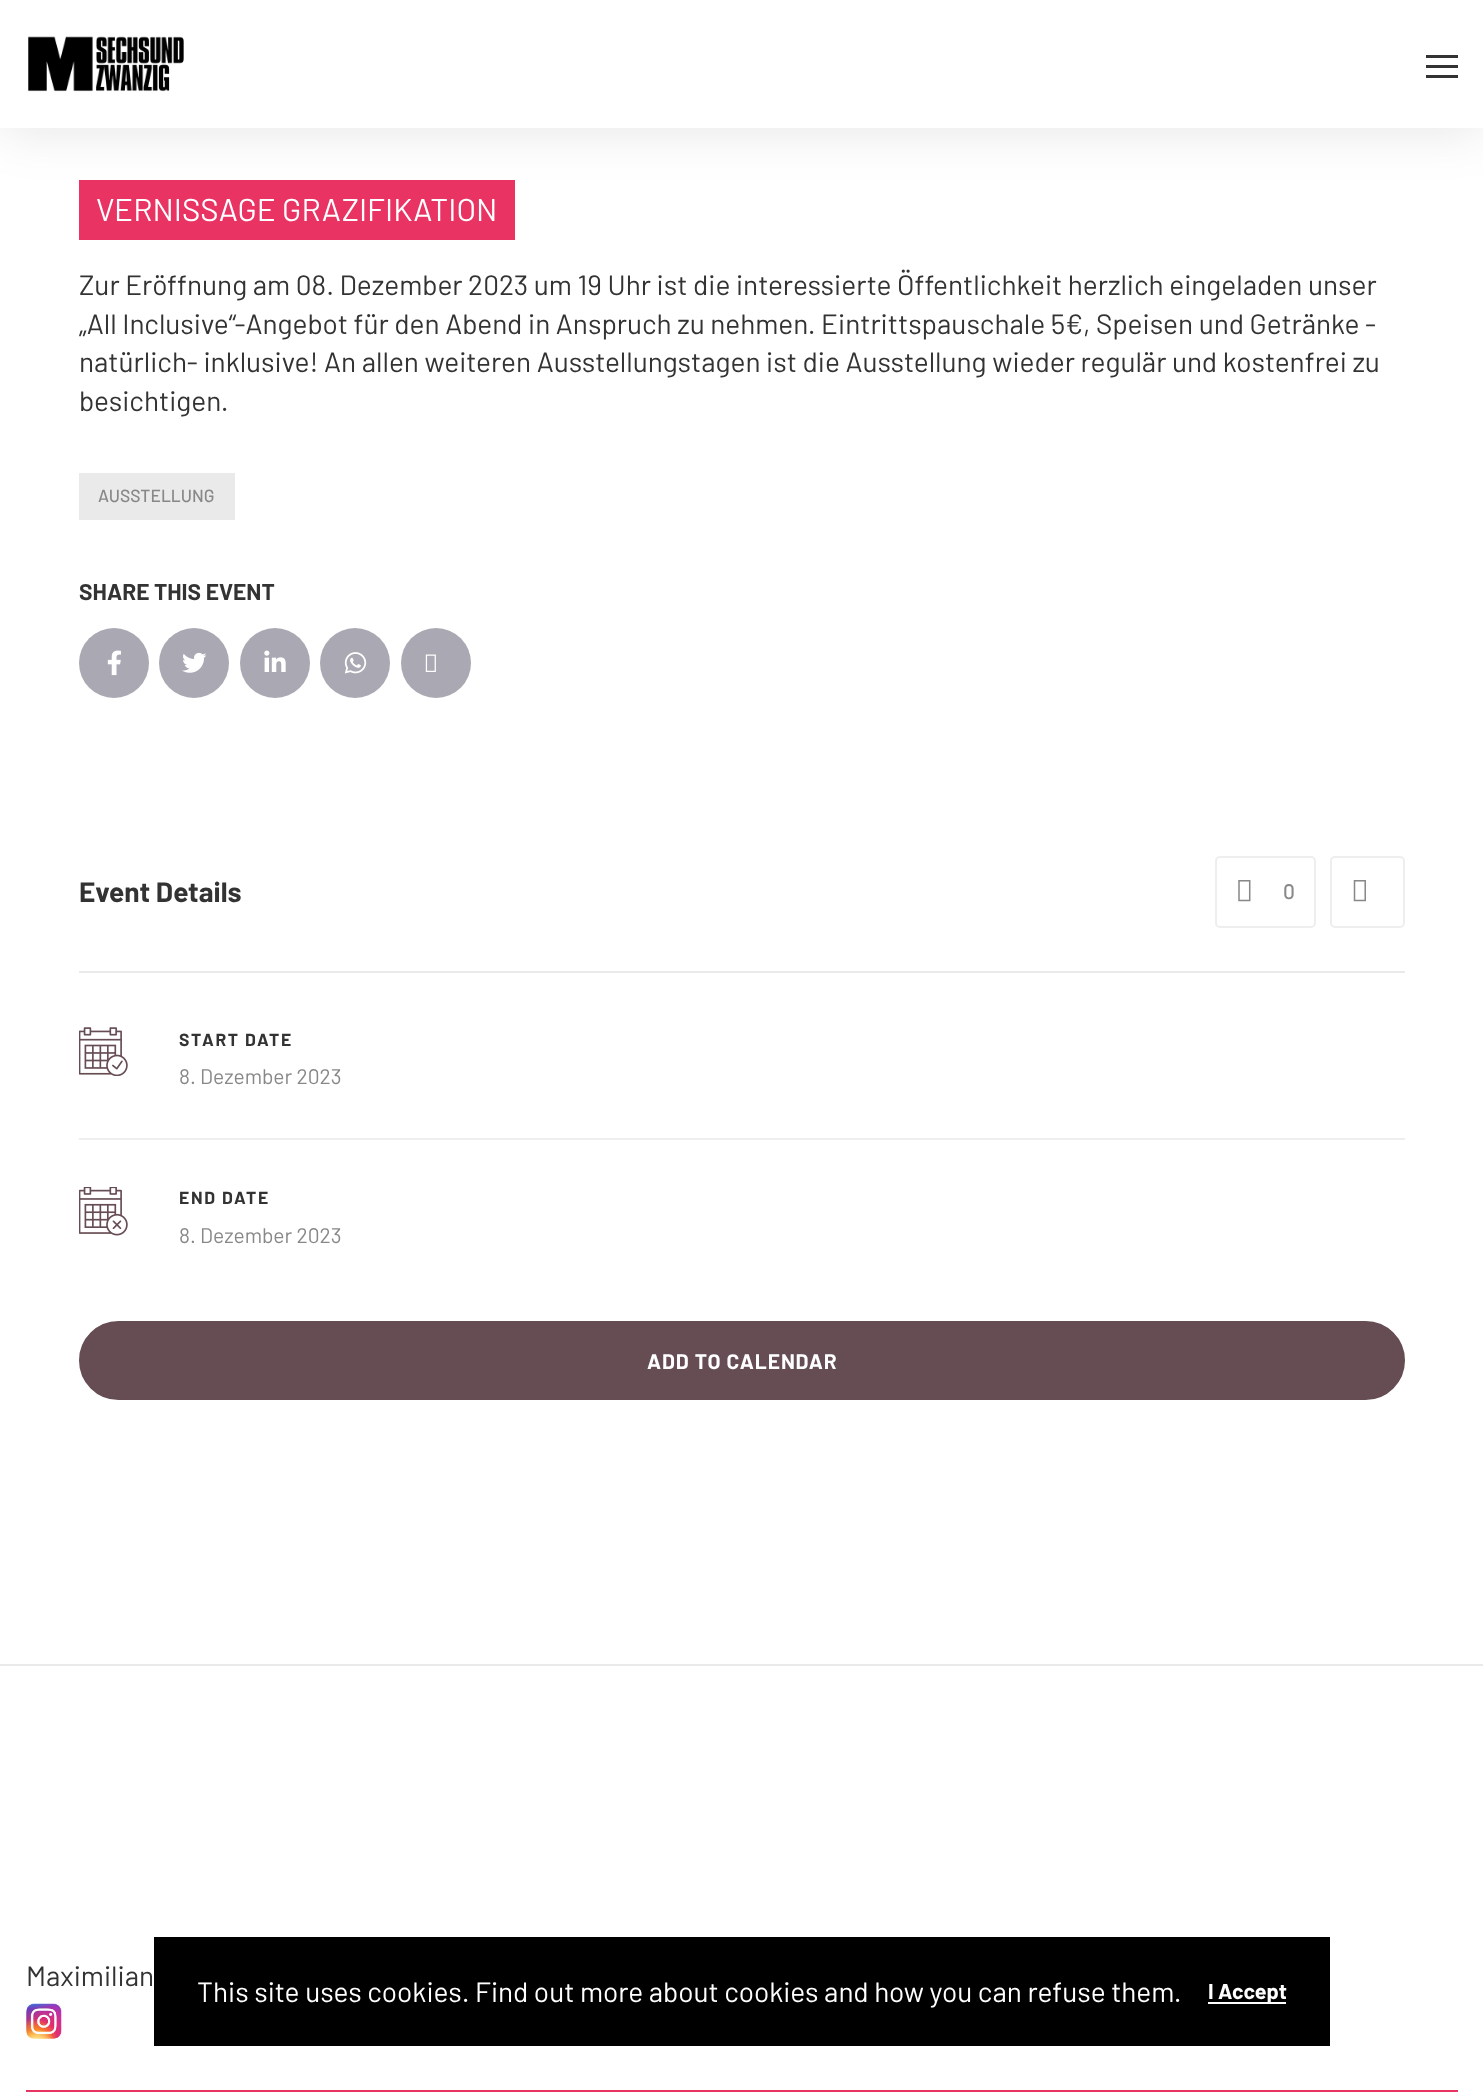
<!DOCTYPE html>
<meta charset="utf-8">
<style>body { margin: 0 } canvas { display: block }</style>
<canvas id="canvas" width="1483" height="2098"></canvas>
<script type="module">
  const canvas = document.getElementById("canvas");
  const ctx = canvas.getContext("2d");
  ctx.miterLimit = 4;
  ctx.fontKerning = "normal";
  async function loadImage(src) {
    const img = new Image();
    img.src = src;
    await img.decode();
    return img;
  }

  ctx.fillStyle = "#ffffff";
  ctx.fillRect(0, 0, 1483, 2098);
  ctx.fillStyle = "#e83363";
  ctx.fillRect(79, 180, 436, 60);
  ctx.fillStyle = "rgba(0, 0, 0, 0.1)";
  ctx.filter = "blur(26px)";
  ctx.beginPath();
  ctx.rect(0, 2, 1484, 128);
  ctx.fill();
  ctx.filter = "none";
  ctx.fillStyle = "#ffffff";
  ctx.fillRect(0, 0, 1483, 128);
  ctx.drawImage(await loadImage("img1.png"), 28, 36, 156, 56);
  ctx.fillStyle = "#333333";
  ctx.fillRect(1426, 55, 32, 3);
  ctx.fillRect(1426, 65, 32, 3);
  ctx.fillRect(1426, 75, 32, 3);
  ctx.font = "31.5px Barlow";
  ctx.fillStyle = "#ffffff";
  ctx.fillText("VERNISSAGE GRAZIFIKATION", 96, 221);
  ctx.font = "28px Barlow";
  ctx.fillStyle = "#333333";
  ctx.fillText("Zur Eröffnung am 08. Dezember 2023 um 19 Uhr ist die interessierte Öffentlichkeit herzlich eingeladen unser", 79, 295);
  ctx.fillText("„All Inclusive“-Angebot für den Abend in Anspruch zu nehmen. Eintrittspauschale 5€, Speisen und Getränke -", 79, 334);
  ctx.fillText("natürlich- inklusive! An allen weiteren Ausstellungstagen ist die Ausstellung wieder regulär und kostenfrei zu", 79, 372);
  ctx.fillText("besichtigen.", 79, 411);
  ctx.fillStyle = "#eaeaea";
  ctx.fillRect(79, 473, 156, 47);
  ctx.font = "500 17.5px Barlow";
  ctx.fillStyle = "#888888";
  ctx.fillText("AUSSTELLUNG", 98, 502);
  ctx.font = "bold 22.75px Barlow";
  ctx.fillStyle = "#333333";
  ctx.fillText("SHARE THIS EVENT", 79, 600);
  ctx.fillStyle = "#a9a8b3";
  ctx.beginPath();
  ctx.arc(114, 663, 35, 0, Math.PI * 2);
  ctx.fill();
  ctx.drawImage(await loadImage("img2.png"), 107, 650, 14, 26);
  ctx.beginPath();
  ctx.arc(194, 663, 35, 0, Math.PI * 2);
  ctx.fill();
  ctx.drawImage(await loadImage("img3.png"), 182, 652, 25, 21);
  ctx.beginPath();
  ctx.arc(275, 663, 35, 0, Math.PI * 2);
  ctx.fill();
  ctx.drawImage(await loadImage("img4.png"), 264, 650, 22, 22);
  ctx.beginPath();
  ctx.arc(355, 663, 35, 0, Math.PI * 2);
  ctx.fill();
  ctx.drawImage(await loadImage("img5.png"), 344, 652, 23, 22);
  ctx.beginPath();
  ctx.arc(436, 663, 35, 0, Math.PI * 2);
  ctx.fill();
  ctx.drawImage(await loadImage("img6.png"), 425, 654, 11, 18);
  ctx.fillStyle = "#eaeaea";
  ctx.fillRect(79, 971, 1326, 2);
  ctx.font = "bold 28px Barlow";
  ctx.fillStyle = "#333333";
  ctx.fillText("Event Details", 79, 902);
  ctx.beginPath();
  ctx.roundRect(1216, 857, 99, 70, 4);
  ctx.strokeStyle = "#eeeeee";
  ctx.lineWidth = 2;
  ctx.stroke();
  ctx.drawImage(await loadImage("img7.png"), 1238, 880, 13, 22);
  ctx.font = "500 21px Barlow";
  ctx.fillStyle = "#888888";
  ctx.fillText("0", 1283, 899);
  ctx.beginPath();
  ctx.roundRect(1331, 857, 73, 70, 4);
  ctx.stroke();
  ctx.drawImage(await loadImage("img8.png"), 1353, 880, 13, 22);
  ctx.fillStyle = "#eeeeee";
  ctx.fillRect(79, 1138, 1326, 2);
  ctx.drawImage(await loadImage("img9.png"), 79, 1027, 49, 49);
  ctx.letterSpacing = "1.75px";
  ctx.font = "bold 17.5px Barlow";
  ctx.fillStyle = "#333333";
  ctx.fillText("START DATE", 179, 1046);
  ctx.letterSpacing = "0px";
  ctx.font = "21px Barlow";
  ctx.fillStyle = "#888888";
  ctx.fillText("8. Dezember 2023", 179, 1084);
  ctx.drawImage(await loadImage("img10.png"), 79, 1187, 49, 49);
  ctx.letterSpacing = "1.75px";
  ctx.font = "bold 17.5px Barlow";
  ctx.fillStyle = "#333333";
  ctx.fillText("END DATE", 179, 1204);
  ctx.letterSpacing = "0px";
  ctx.font = "21px Barlow";
  ctx.fillStyle = "#888888";
  ctx.fillText("8. Dezember 2023", 179, 1243);
  ctx.fillStyle = "#664c53";
  ctx.beginPath();
  ctx.roundRect(80, 1322, 1324, 77, 38.5);
  ctx.fill();
  ctx.strokeStyle = "#664c53";
  ctx.stroke();
  ctx.letterSpacing = "0.9px";
  ctx.font = "bold 21px Barlow";
  ctx.fillStyle = "#ffffff";
  ctx.fillText("ADD TO CALENDAR", 647, 1369);
  ctx.fillStyle = "#eaeaea";
  ctx.fillRect(0, 1664, 1483, 2);
  ctx.letterSpacing = "0px";
  ctx.font = "28px Barlow";
  ctx.fillStyle = "#333333";
  ctx.fillText("Maximilian", 26, 1986);
  ctx.drawImage(await loadImage("img11.png"), 26, 2003, 36, 36);
  ctx.fillStyle = "#e83463";
  ctx.fillRect(26, 2090, 1432, 2);
  ctx.fillStyle = "#000000";
  ctx.fillRect(154, 1937, 1176, 109);
  ctx.fillStyle = "#ffffff";
  ctx.fillText("This site uses cookies. Find out more about cookies and how you can refuse them.", 197, 2002);
  ctx.fillRect(1208, 2002, 78, 2);
  ctx.font = "bold 21.5px Barlow";
  ctx.fillText("I Accept", 1208, 1999);
</script>
